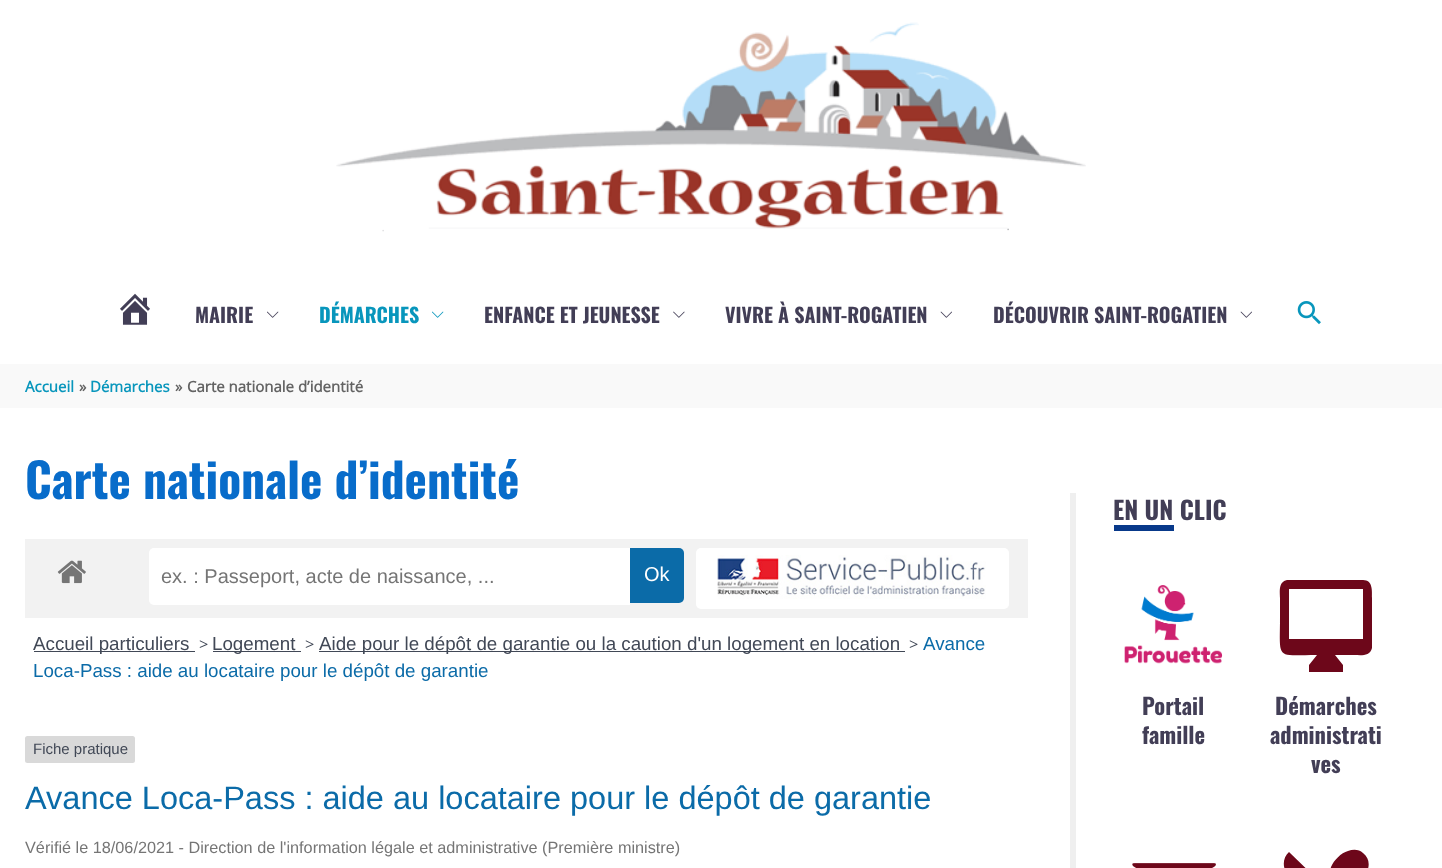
<!DOCTYPE html>
<meta charset="utf-8">
<style>body { margin: 0 } canvas { display: block }</style>
<canvas id="canvas" width="1442" height="868"></canvas>
<script type="module">
  const canvas = document.getElementById("canvas");
  const ctx = canvas.getContext("2d");
  ctx.miterLimit = 4;
  ctx.fontKerning = "normal";
  async function loadImage(src) {
    const img = new Image();
    img.src = src;
    await img.decode();
    return img;
  }

  ctx.fillStyle = "#ffffff";
  ctx.fillRect(0, 0, 1442, 868);
  ctx.drawImage(await loadImage("img1.png"), 336, 22, 750, 210);
  ctx.drawImage(await loadImage("img2.png"), 120, 293, 30, 32);
  ctx.font = "bold 20px Oswald";
  ctx.fillStyle = "#423e56";
  ctx.fillText("MAIRIE", 195, 323);
  ctx.drawImage(await loadImage("img3.png"), 267, 311, 12, 7);
  ctx.fillStyle = "#0896bc";
  ctx.fillText("DÉMARCHES", 319, 323);
  ctx.drawImage(await loadImage("img4.png"), 432, 311, 12, 7);
  ctx.fillStyle = "#423e56";
  ctx.fillText("ENFANCE ET JEUNESSE", 484, 323);
  ctx.drawImage(await loadImage("img5.png"), 673, 311, 12, 7);
  ctx.fillText("VIVRE À SAINT-ROGATIEN", 725, 323);
  ctx.drawImage(await loadImage("img6.png"), 940, 311, 12, 7);
  ctx.fillText("DÉCOUVRIR SAINT-ROGATIEN", 993, 323);
  ctx.drawImage(await loadImage("img6.png"), 1240, 311, 12, 7);
  ctx.drawImage(await loadImage("img7.png"), 1297, 301, 24, 24);
  ctx.fillStyle = "#f9f9f9";
  ctx.fillRect(0, 364, 1442, 44);
  ctx.font = "bold 15px Open Sans";
  ctx.fillStyle = "#0896bc";
  ctx.fillText("Accueil", 25, 392);
  ctx.fillStyle = "#636363";
  ctx.fillText("»", 79, 392);
  ctx.fillStyle = "#0896bc";
  ctx.fillText("Démarches", 90, 392);
  ctx.fillStyle = "#636363";
  ctx.fillText("»", 175, 392);
  ctx.fillText("Carte nationale d’identité", 187, 392);
  ctx.font = "bold 47.5px Oswald";
  ctx.fillStyle = "#086cca";
  ctx.fillText("Carte nationale d’identité", 25, 499);
  ctx.fillStyle = "#f2f2f2";
  ctx.fillRect(25, 539, 1003, 79);
  ctx.drawImage(await loadImage("img8.png"), 57, 560, 29, 24);
  ctx.fillStyle = "#ffffff";
  ctx.beginPath();
  ctx.roundRect(149, 548, 481, 57, [5, 0, 0, 5]);
  ctx.fill();
  ctx.font = "20px Liberation Sans";
  ctx.fillStyle = "#757575";
  ctx.fillText("ex. : Passeport, acte de naissance, ...", 161, 583);
  ctx.fillStyle = "#0b6ba8";
  ctx.beginPath();
  ctx.roundRect(630, 548, 54, 55, [0, 5, 5, 0]);
  ctx.fill();
  ctx.fillStyle = "#ffffff";
  ctx.fillText("Ok", 644, 581);
  ctx.beginPath();
  ctx.roundRect(696, 548, 313, 61, 5);
  ctx.fill();
  ctx.drawImage(await loadImage("img9.png"), 717, 555, 269, 44);
  ctx.fillStyle = "#414856";
  ctx.fillRect(34, 651, 161, 1);
  ctx.font = "18.75px Liberation Sans";
  ctx.fillText("Accueil particuliers", 33, 650);
  ctx.font = "16.25px Open Sans";
  ctx.fillText(">", 199, 650);
  ctx.fillRect(213, 651, 88, 1);
  ctx.font = "18.75px Liberation Sans";
  ctx.fillText("Logement", 212, 650);
  ctx.font = "16.25px Open Sans";
  ctx.fillText(">", 305, 650);
  ctx.fillRect(319, 651, 586, 1);
  ctx.font = "18.75px Liberation Sans";
  ctx.fillText("Aide pour le dépôt de garantie ou la caution d'un logement en location", 319, 650);
  ctx.font = "16.25px Open Sans";
  ctx.fillText(">", 909, 650);
  ctx.font = "18.75px Liberation Sans";
  ctx.fillStyle = "#0b6ba8";
  ctx.fillText("Avance", 923, 650);
  ctx.fillText("Loca-Pass : aide au locataire pour le dépôt de garantie", 33, 677);
  ctx.fillStyle = "#d9d9d9";
  ctx.beginPath();
  ctx.roundRect(25, 736, 110, 27, 2.5);
  ctx.fill();
  ctx.font = "15px Liberation Sans";
  ctx.fillStyle = "#414856";
  ctx.fillText("Fiche pratique", 33, 754);
  ctx.font = "32.5px Liberation Sans";
  ctx.fillStyle = "#0b6ba8";
  ctx.fillText("Avance Loca-Pass : aide au locataire pour le dépôt de garantie", 25, 809);
  ctx.font = "16.25px Liberation Sans";
  ctx.fillStyle = "#757575";
  ctx.fillText("Vérifié le 18/06/2021 - Direction de l'information légale et administrative (Première ministre)", 25, 853);
  ctx.fillStyle = "#efefef";
  ctx.fillRect(1070, 493, 6, 375);
  ctx.font = "bold 25px Oswald";
  ctx.fillStyle = "#423e56";
  ctx.fillText("EN UN CLIC", 1113, 520);
  ctx.fillStyle = "#08398a";
  ctx.fillRect(1114, 525, 60, 6);
  ctx.drawImage(await loadImage("img10.png"), 1124, 585, 99, 79);
  ctx.font = "bold 22.5px Oswald";
  ctx.fillStyle = "#423e56";
  ctx.fillText("Portail", 1142, 715);
  ctx.fillText("famille", 1142, 744);
  ctx.fillStyle = "#6d071a";
  ctx.beginPath();
  ctx.moveTo(1363, 580);
  ctx.bezierCurveTo(1373, 580, 1372, 591, 1372, 598);
  ctx.lineTo(1372, 648);
  ctx.bezierCurveTo(1370, 657, 1360, 655, 1354, 655);
  ctx.lineTo(1335, 655);
  ctx.lineTo(1343, 665);
  ctx.lineTo(1343, 672);
  ctx.lineTo(1309, 672);
  ctx.lineTo(1309, 665);
  ctx.lineTo(1317, 655);
  ctx.bezierCurveTo(1275, 655, 1280, 661, 1280, 617);
  ctx.lineTo(1280, 598);
  ctx.bezierCurveTo(1280, 592, 1278, 582, 1287, 580);
  ctx.closePath();
  ctx.moveTo(1363, 639);
  ctx.lineTo(1363, 589);
  ctx.lineTo(1289, 589);
  ctx.lineTo(1289, 639);
  ctx.closePath();
  ctx.fill();
  ctx.fillStyle = "#423e56";
  ctx.fillText("Démarches", 1275, 715);
  ctx.fillText("administrati", 1270, 744);
  ctx.fillText("ves", 1311, 773);
  ctx.drawImage(await loadImage("img11.png"), 1132, 863, 84, 5);
  ctx.fillStyle = "#6d071a";
  ctx.beginPath();
  ctx.moveTo(1308, 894);
  ctx.lineTo(1287, 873);
  ctx.bezierCurveTo(1282, 867, 1283, 857, 1289, 852);
  ctx.lineTo(1320, 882);
  ctx.closePath();
  ctx.moveTo(1338, 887);
  ctx.lineTo(1331, 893);
  ctx.lineTo(1362, 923);
  ctx.lineTo(1356, 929);
  ctx.lineTo(1325, 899);
  ctx.lineTo(1294, 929);
  ctx.lineTo(1288, 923);
  ctx.lineTo(1331, 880);
  ctx.bezierCurveTo(1329, 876, 1330, 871, 1331, 867);
  ctx.bezierCurveTo(1334, 860, 1341, 853, 1348, 851);
  ctx.bezierCurveTo(1353, 849, 1359, 849, 1363, 853);
  ctx.bezierCurveTo(1380, 866, 1355, 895, 1338, 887);
  ctx.closePath();
  ctx.fill();
</script>
